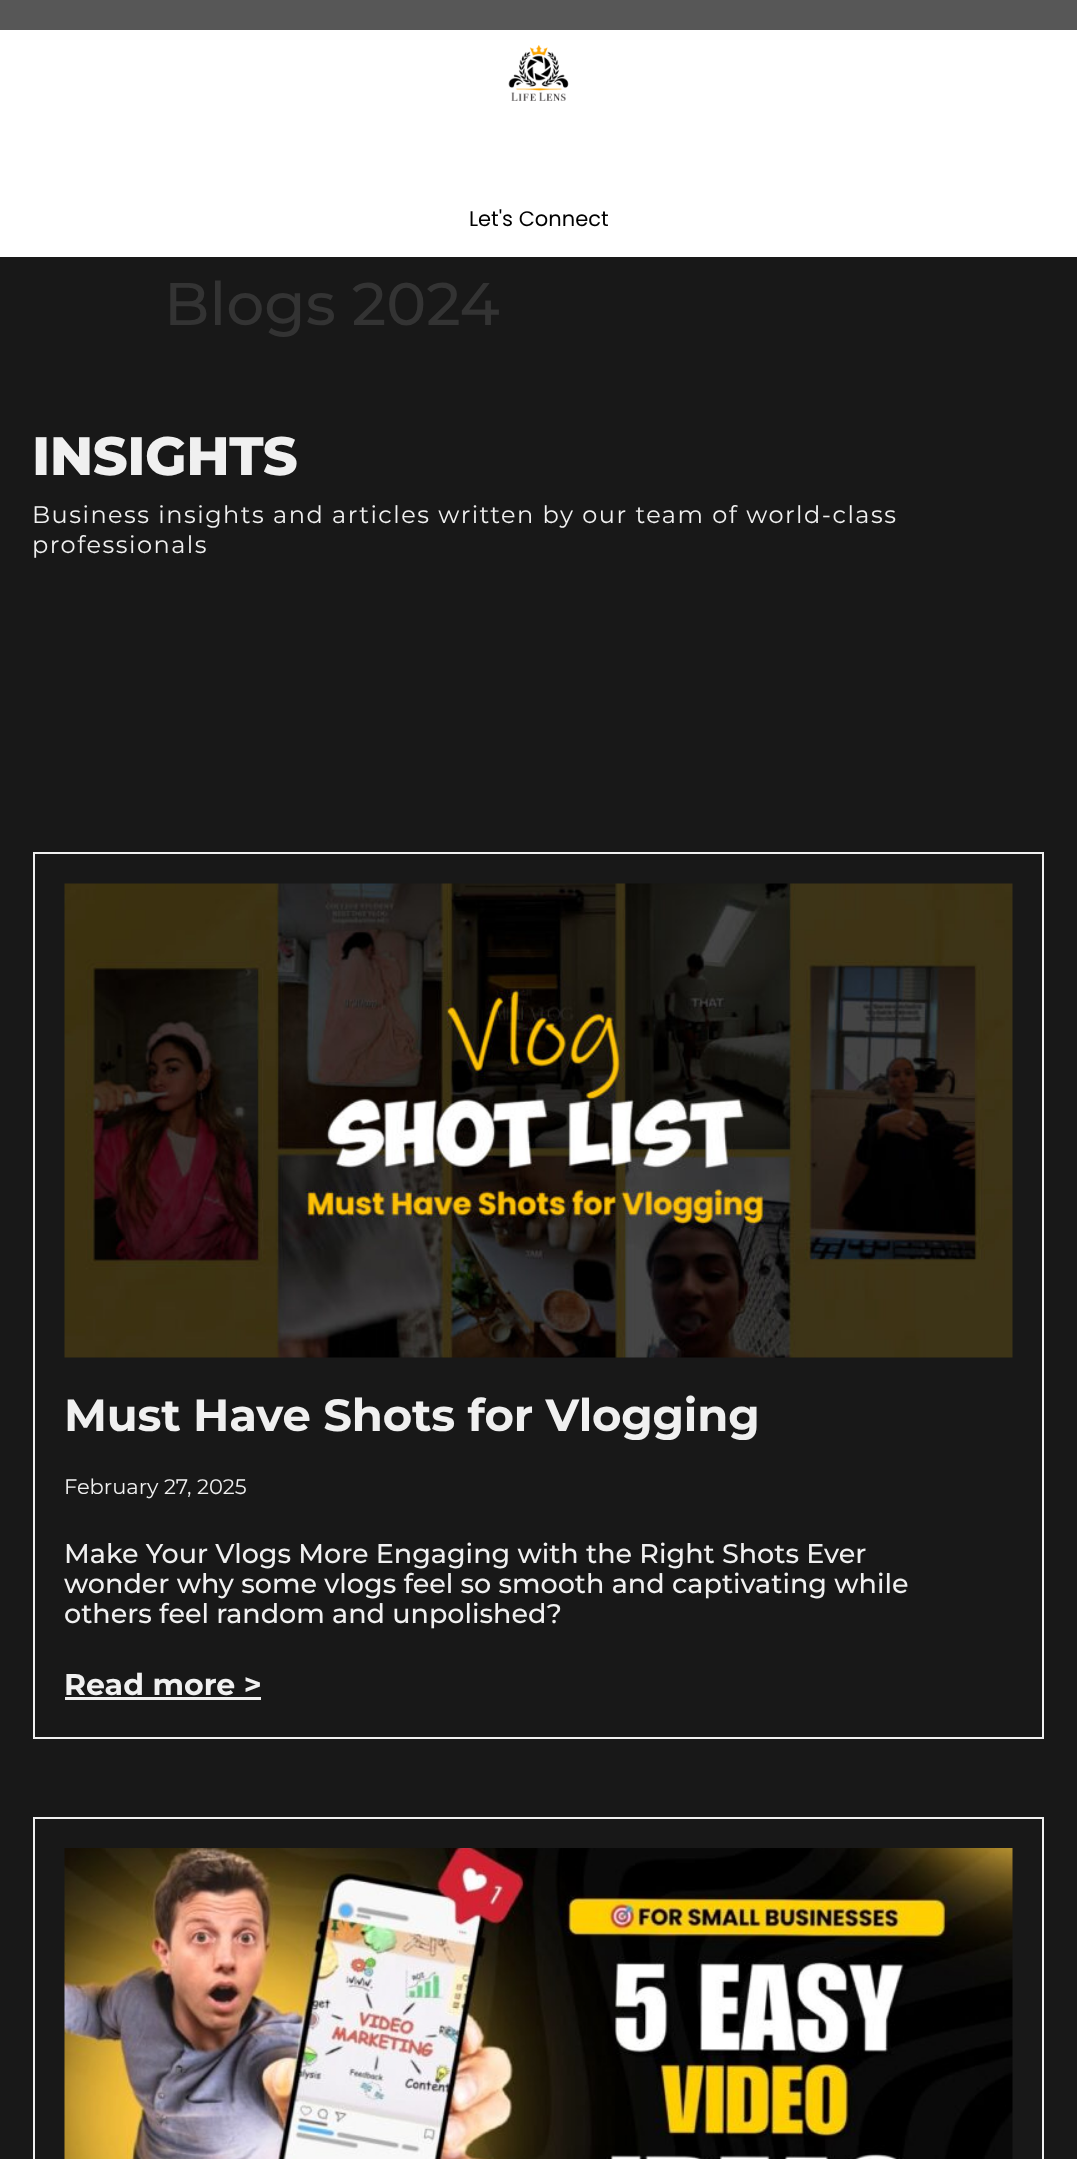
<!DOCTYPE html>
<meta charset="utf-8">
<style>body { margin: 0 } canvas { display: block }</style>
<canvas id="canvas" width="1077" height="2159"></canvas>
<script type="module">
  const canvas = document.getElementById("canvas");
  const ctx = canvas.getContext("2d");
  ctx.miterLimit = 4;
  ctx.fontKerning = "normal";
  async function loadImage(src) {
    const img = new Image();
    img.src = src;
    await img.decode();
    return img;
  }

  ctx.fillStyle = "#181818";
  ctx.fillRect(0, 0, 1077, 2159);
  ctx.fillStyle = "#575757";
  ctx.fillRect(0, 0, 1077, 30);
  ctx.fillStyle = "#ffffff";
  ctx.fillRect(0, 30, 1077, 227);
  ctx.drawImage(await loadImage("img1.png"), 508, 45, 61, 56);
  ctx.font = "21px Poppins";
  ctx.fillStyle = "#000000";
  ctx.fillText("Let's Connect", 469, 226);
  ctx.font = "500 60px Montserrat";
  ctx.fillStyle = "#333333";
  ctx.fillText("Blogs 2024", 164, 325);
  ctx.letterSpacing = "-0.5px";
  ctx.font = "800 54px Montserrat";
  ctx.fillStyle = "#f0f0f0";
  ctx.fillText("INSIGHTS", 32, 475);
  ctx.letterSpacing = "1.5px";
  ctx.font = "24px Montserrat";
  ctx.fillText("Business insights and articles written by our team of world-class", 32, 523);
  ctx.fillText("professionals", 32, 553);
  ctx.strokeStyle = "#f0f0f0";
  ctx.lineWidth = 2;
  ctx.strokeRect(34, 853, 1009, 885);
  ctx.drawImage(await loadImage("img2.png"), 64, 883, 949, 475);
  ctx.letterSpacing = "-0.2px";
  ctx.font = "bold 45px Montserrat";
  ctx.fillText("Must Have Shots for Vlogging", 64, 1431);
  ctx.letterSpacing = "0px";
  ctx.font = "21px Montserrat";
  ctx.fillText("February 27, 2025", 64, 1494);
  ctx.font = "500 27px Montserrat";
  ctx.fillText("Make Your Vlogs More Engaging with the Right Shots Ever", 64, 1563);
  ctx.fillText("wonder why some vlogs feel so smooth and captivating while", 64, 1593);
  ctx.fillText("others feel random and unpolished?", 64, 1623);
  ctx.font = "bold 30px Montserrat";
  ctx.fillText("Read more >", 64, 1695);
  ctx.fillRect(65, 1697, 196, 3);
  ctx.strokeRect(34, 1818, 1009, 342);
  ctx.drawImage(await loadImage("img3.png"), 64, 1848, 949, 311);
</script>
